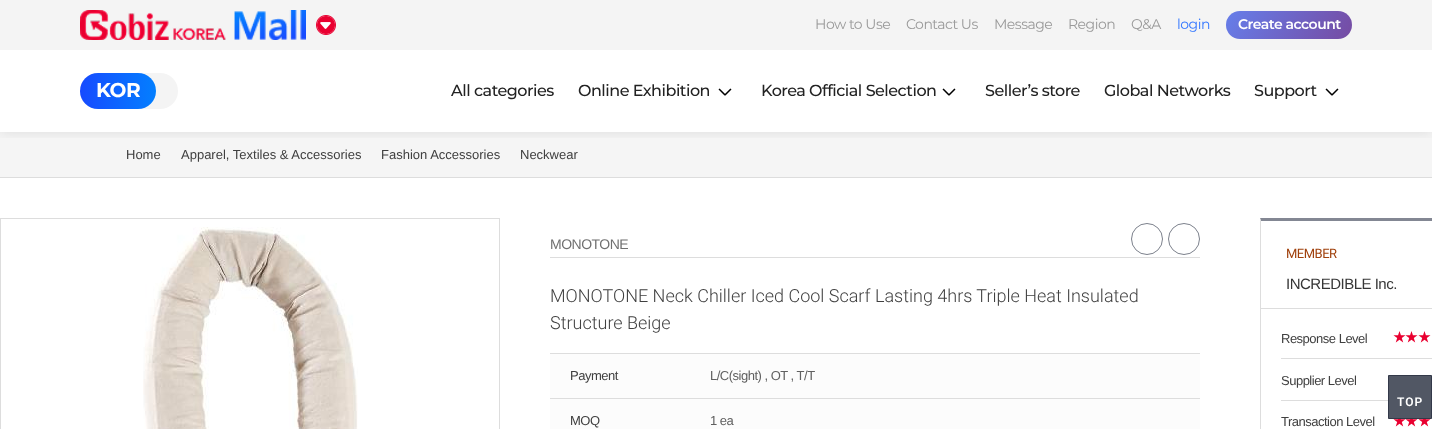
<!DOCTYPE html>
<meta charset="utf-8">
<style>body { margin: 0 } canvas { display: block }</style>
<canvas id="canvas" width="1432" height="429"></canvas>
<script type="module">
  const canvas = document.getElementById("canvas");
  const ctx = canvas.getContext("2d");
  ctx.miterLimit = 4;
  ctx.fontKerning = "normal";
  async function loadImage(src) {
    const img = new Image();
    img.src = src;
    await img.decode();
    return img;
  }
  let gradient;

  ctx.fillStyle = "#ffffff";
  ctx.fillRect(0, 0, 1432, 429);
  ctx.fillStyle = "#f5f5f5";
  ctx.fillRect(0, 132, 1432, 45);
  ctx.save();
  ctx.beginPath();
  ctx.rect(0, 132, 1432, 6);
  ctx.clip();
  ctx.fillStyle = "rgba(0, 0, 0, 0.1)";
  ctx.filter = "blur(7px)";
  ctx.beginPath();
  ctx.rect(0, 0, 1432, 132);
  ctx.fill();
  ctx.filter = "none";
  ctx.restore();
  ctx.fillStyle = "#f4f4f4";
  ctx.fillRect(0, 0, 1432, 50);
  ctx.drawImage(await loadImage("img1.png"), 80, 10, 226, 30);
  ctx.drawImage(await loadImage("img2.png"), 316, 15, 20, 20);
  ctx.letterSpacing = "-0.5px";
  ctx.font = "14px Montserrat";
  ctx.fillStyle = "#999999";
  ctx.fillText("How to Use", 815, 29);
  ctx.fillText("Contact Us", 906, 29);
  ctx.fillText("Message", 994, 29);
  ctx.fillText("Region", 1068, 29);
  ctx.fillText("Q&A", 1131, 29);
  ctx.fillStyle = "#3377ff";
  ctx.fillText("login", 1177, 29);
  gradient = ctx.createLinearGradient(1236, -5.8, 1342, 56);
  gradient.addColorStop(0, "#667eea");
  gradient.addColorStop(1, "#764ba2");
  ctx.fillStyle = gradient;
  ctx.beginPath();
  ctx.roundRect(1226, 11, 126, 28, 14);
  ctx.fill();
  ctx.font = "600 14px Montserrat";
  ctx.fillStyle = "#ffffff";
  ctx.fillText("Create account", 1238, 29);
  ctx.fillStyle = "#f4f4f4";
  ctx.beginPath();
  ctx.roundRect(80, 73, 98, 36, 18);
  ctx.fill();
  gradient = ctx.createLinearGradient(80, 91, 156, 91);
  gradient.addColorStop(0, "#174aff");
  gradient.addColorStop(1, "#037fff");
  ctx.fillStyle = gradient;
  ctx.beginPath();
  ctx.roundRect(80, 73, 76, 36, 18);
  ctx.fill();
  ctx.font = "bold 20px Montserrat";
  ctx.fillStyle = "#ffffff";
  ctx.fillText("KOR", 96, 97);
  ctx.font = "500 16px Montserrat";
  ctx.fillStyle = "#222222";
  ctx.fillText("All categories", 451, 96);
  ctx.fillText("Online Exhibition", 578, 96);
  ctx.drawImage(await loadImage("img3.png"), 718, 88, 14, 8);
  ctx.fillText("Korea Official Selection", 761, 96);
  ctx.drawImage(await loadImage("img3.png"), 942, 88, 14, 8);
  ctx.fillText("Seller’s store", 985, 96);
  ctx.fillText("Global Networks", 1104, 96);
  ctx.fillText("Support", 1254, 96);
  ctx.drawImage(await loadImage("img3.png"), 1325, 88, 14, 8);
  ctx.fillStyle = "#dddddd";
  ctx.fillRect(0, 177, 1432, 1);
  ctx.letterSpacing = "0px";
  ctx.font = "13px Liberation Sans";
  ctx.fillStyle = "#404040";
  ctx.fillText("Home", 126, 159);
  ctx.fillText("Apparel, Textiles & Accessories", 181, 159);
  ctx.fillText("Fashion Accessories", 381, 159);
  ctx.fillText("Neckwear", 520, 159);
  ctx.strokeStyle = "#dddddd";
  ctx.strokeRect(0.5, 218.5, 499, 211);
  ctx.drawImage(await loadImage("img4.png"), 143, 227, 215, 202);
  ctx.fillStyle = "#dddddd";
  ctx.fillRect(550, 257, 650, 1);
  ctx.letterSpacing = "-0.5px";
  ctx.font = "14px Liberation Sans";
  ctx.fillStyle = "#707070";
  ctx.fillText("MONOTONE", 550, 249);
  ctx.beginPath();
  ctx.arc(1147, 239, 15.5, 0, Math.PI * 2);
  ctx.strokeStyle = "#7c818c";
  ctx.stroke();
  ctx.beginPath();
  ctx.arc(1184, 239, 15.5, 0, Math.PI * 2);
  ctx.stroke();
  ctx.letterSpacing = "0px";
  ctx.font = "300 18px Roboto";
  ctx.fillStyle = "#404040";
  ctx.fillText("MONOTONE Neck Chiller Iced Cool Scarf Lasting 4hrs Triple Heat Insulated", 550, 302);
  ctx.fillText("Structure Beige", 550, 329);
  ctx.fillStyle = "#fcfcfc";
  ctx.fillRect(550, 354, 650, 44);
  ctx.fillStyle = "#dddddd";
  ctx.fillRect(550, 353, 650, 1);
  ctx.letterSpacing = "-0.5px";
  ctx.font = "13px Liberation Sans";
  ctx.fillStyle = "#404040";
  ctx.fillText("Payment", 570, 380);
  ctx.fillStyle = "#606060";
  ctx.fillText("L/C(sight) , OT , T/T", 710, 380);
  ctx.fillStyle = "#fcfcfc";
  ctx.fillRect(550, 399, 650, 30);
  ctx.fillStyle = "#dddddd";
  ctx.fillRect(550, 398, 650, 1);
  ctx.fillStyle = "#404040";
  ctx.fillText("MOQ", 570, 425);
  ctx.fillStyle = "#606060";
  ctx.fillText("1 ea", 710, 425);
  ctx.fillStyle = "#838793";
  ctx.beginPath();
  ctx.moveTo(1260, 218);
  ctx.lineTo(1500, 218);
  ctx.lineTo(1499, 221);
  ctx.lineTo(1261, 221);
  ctx.closePath();
  ctx.fill();
  ctx.fillStyle = "#dddddd";
  ctx.beginPath();
  ctx.moveTo(1260, 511);
  ctx.lineTo(1260, 218);
  ctx.lineTo(1261, 221);
  ctx.lineTo(1261, 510);
  ctx.closePath();
  ctx.fill();
  ctx.fillRect(1261, 308, 171, 1);
  ctx.font = "13px Roboto";
  ctx.fillStyle = "#a0410d";
  ctx.fillText("MEMBER", 1286, 258);
  ctx.font = "15px Liberation Sans";
  ctx.fillStyle = "#363636";
  ctx.fillText("INCREDIBLE Inc.", 1286, 289);
  ctx.fillStyle = "#dddddd";
  ctx.fillRect(1281, 358, 151, 1);
  ctx.font = "13px Liberation Sans";
  ctx.fillStyle = "#404040";
  ctx.fillText("Response Level", 1281, 343);
  ctx.letterSpacing = "-2px";
  ctx.font = "bold 14px DejaVu Sans";
  ctx.fillStyle = "#e90030";
  ctx.fillText("★", 1393, 342);
  ctx.fillText("★", 1405, 342);
  ctx.fillText("★", 1418, 342);
  ctx.fillStyle = "#dddddd";
  ctx.fillRect(1281, 400, 107, 1);
  ctx.letterSpacing = "-0.5px";
  ctx.font = "13px Liberation Sans";
  ctx.fillStyle = "#404040";
  ctx.fillText("Supplier Level", 1281, 385);
  ctx.fillText("Transaction Level", 1281, 426);
  ctx.letterSpacing = "-2px";
  ctx.font = "bold 14px DejaVu Sans";
  ctx.fillStyle = "#e90030";
  ctx.fillText("★", 1393, 426);
  ctx.fillText("★", 1405, 426);
  ctx.fillText("★", 1418, 426);
  ctx.fillStyle = "#515764";
  ctx.beginPath();
  ctx.rect(1388.5, 375.5, 43, 43);
  ctx.fill();
  ctx.strokeStyle = "#333949";
  ctx.stroke();
  ctx.letterSpacing = "1px";
  ctx.font = "600 12px Roboto";
  ctx.fillStyle = "#ffffff";
  ctx.fillText("TOP", 1397, 406);
</script>
